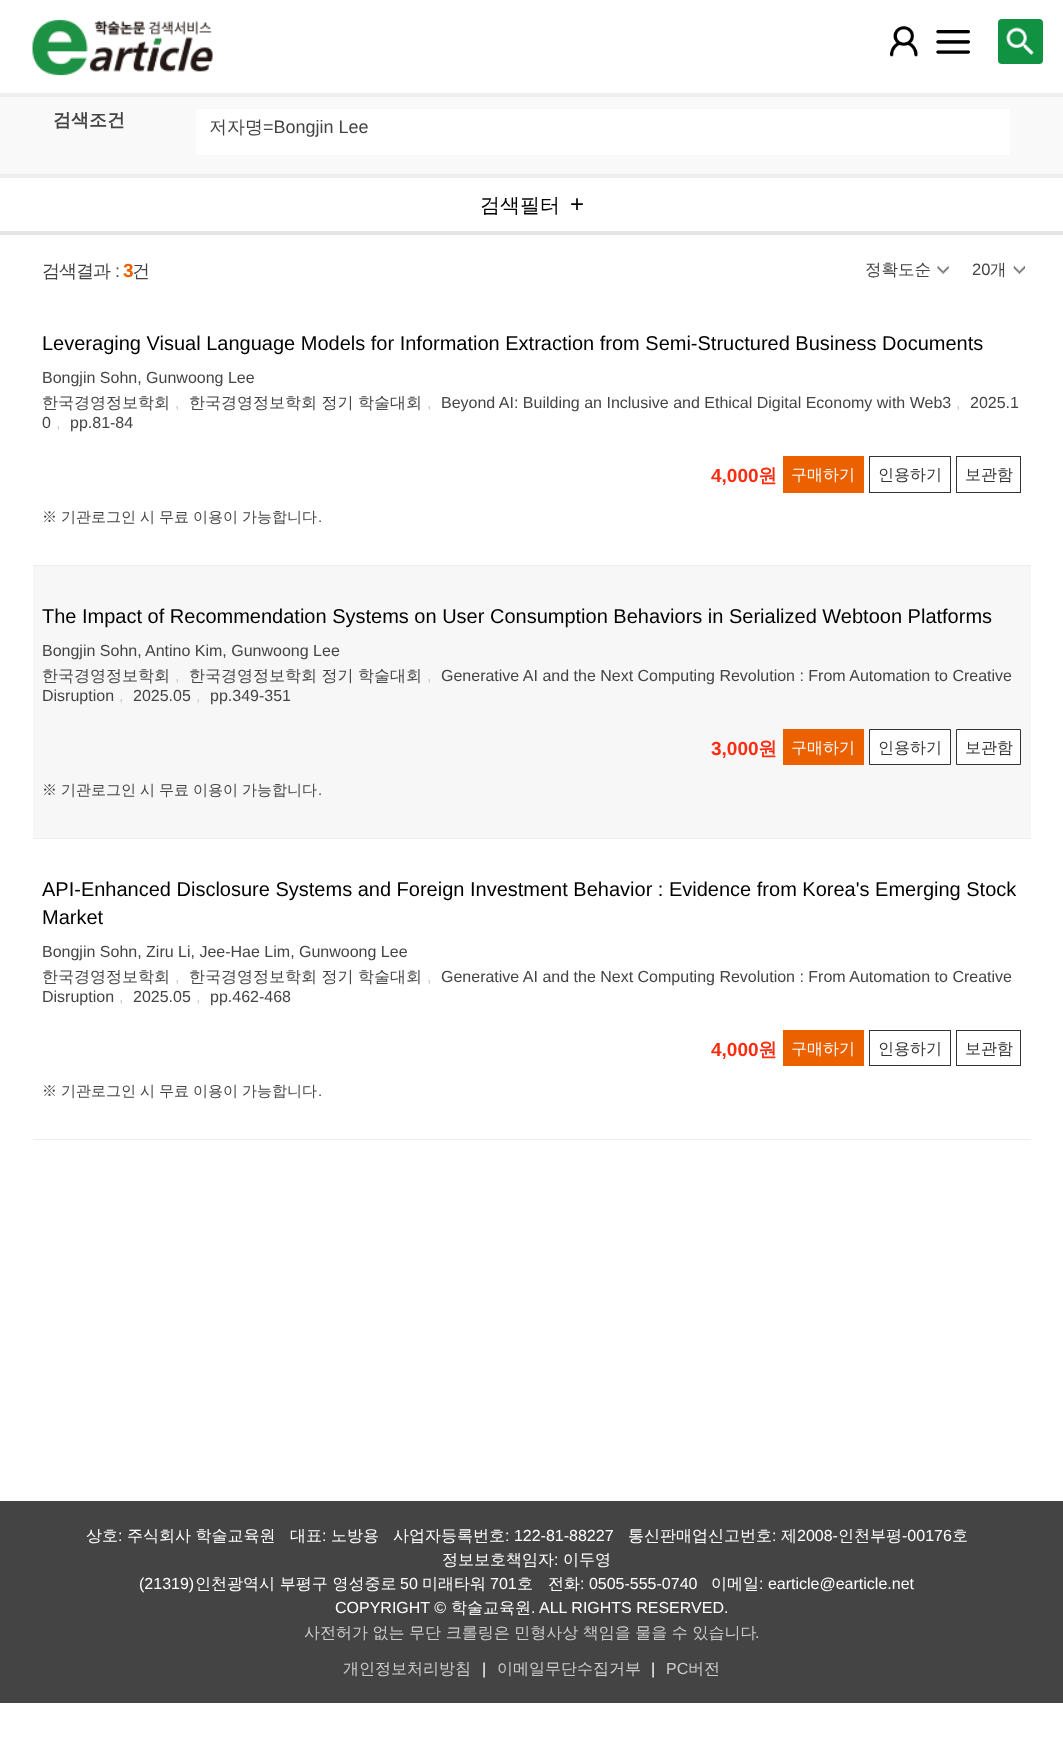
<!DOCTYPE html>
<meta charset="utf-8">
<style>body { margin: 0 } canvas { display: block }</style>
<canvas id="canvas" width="1063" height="1761"></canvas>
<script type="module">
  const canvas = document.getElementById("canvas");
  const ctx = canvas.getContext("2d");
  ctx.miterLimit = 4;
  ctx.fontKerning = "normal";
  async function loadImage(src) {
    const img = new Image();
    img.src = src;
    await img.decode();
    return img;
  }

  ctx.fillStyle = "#ffffff";
  ctx.fillRect(0, 0, 1063, 1761);
  ctx.drawImage(await loadImage("img1.png"), 32, 19, 181, 57);
  ctx.drawImage(await loadImage("img2.png"), 890, 26, 28, 31);
  ctx.drawImage(await loadImage("img3.png"), 936, 30, 34, 24);
  ctx.fillStyle = "#119242";
  ctx.beginPath();
  ctx.roundRect(998, 19, 45, 45, 4);
  ctx.fill();
  ctx.drawImage(await loadImage("img4.png"), 1006, 27, 28, 28);
  ctx.fillStyle = "#f9f9f9";
  ctx.fillRect(0, 97, 1063, 77);
  ctx.fillStyle = "#eeeeee";
  ctx.fillRect(0, 93, 1063, 4);
  ctx.font = "bold 18px WenQuanYi Zen Hei";
  ctx.fillStyle = "#444444";
  ctx.fillText("검색조건", 53, 126);
  ctx.fillStyle = "#ffffff";
  ctx.fillRect(196, 109, 814, 46);
  ctx.font = "500 18px WenQuanYi Zen Hei";
  ctx.fillStyle = "#444444";
  ctx.fillText("저자명", 209, 133);
  ctx.font = "18px Liberation Sans";
  ctx.fillText("=Bongjin Lee", 263, 133);
  ctx.fillStyle = "#eeeeee";
  ctx.fillRect(0, 174, 1063, 4);
  ctx.fillStyle = "#e5e5e5";
  ctx.fillRect(0, 231, 1063, 4);
  ctx.font = "500 20px WenQuanYi Zen Hei";
  ctx.fillStyle = "#000000";
  ctx.fillText("검색필터", 480, 212);
  ctx.font = "24px Liberation Sans";
  ctx.fillText("+", 570, 212);
  ctx.letterSpacing = "-1px";
  ctx.font = "500 18px WenQuanYi Zen Hei";
  ctx.fillStyle = "#444444";
  ctx.fillText("검색결과", 42, 277);
  ctx.font = "18px Liberation Sans";
  ctx.fillText(":", 115, 277);
  ctx.font = "bold 19px Liberation Sans";
  ctx.fillStyle = "#eb6100";
  ctx.fillText("3", 123, 277);
  ctx.font = "500 18px WenQuanYi Zen Hei";
  ctx.fillStyle = "#444444";
  ctx.fillText("건", 132, 277);
  ctx.drawImage(await loadImage("img5.png"), 937, 266, 12, 8);
  ctx.letterSpacing = "0px";
  ctx.font = "500 16.5px WenQuanYi Zen Hei";
  ctx.fillText("정확도순", 865, 275);
  ctx.drawImage(await loadImage("img6.png"), 1013, 266, 12, 8);
  ctx.font = "16.5px Liberation Sans";
  ctx.fillText("20", 972, 275);
  ctx.font = "500 16.5px WenQuanYi Zen Hei";
  ctx.fillText("개", 990, 275);
  ctx.fillStyle = "#eeeeee";
  ctx.fillRect(33, 565, 998, 1);
  ctx.font = "20px Liberation Sans";
  ctx.fillStyle = "#000000";
  ctx.fillText("Leveraging Visual Language Models for Information Extraction from Semi-Structured Business Documents", 42, 350);
  ctx.font = "16px Liberation Sans";
  ctx.fillStyle = "#444444";
  ctx.fillText("Bongjin Sohn, Gunwoong Lee", 42, 383);
  ctx.font = "500 16px WenQuanYi Zen Hei";
  ctx.fillText("한국경영정보학회", 42, 408);
  ctx.font = "16px Liberation Sans";
  ctx.fillStyle = "#cccccc";
  ctx.fillText(",", 175, 408);
  ctx.wordSpacing = "-0.25px";
  ctx.font = "500 16px WenQuanYi Zen Hei";
  ctx.fillStyle = "#444444";
  ctx.fillText("한국경영정보학회 정기 학술대회", 189, 408);
  ctx.wordSpacing = "0px";
  ctx.font = "16px Liberation Sans";
  ctx.fillStyle = "#cccccc";
  ctx.fillText(",", 427, 408);
  ctx.fillStyle = "#444444";
  ctx.fillText("Beyond AI: Building an Inclusive and Ethical Digital Economy with Web3", 441, 408);
  ctx.fillStyle = "#cccccc";
  ctx.fillText(",", 956, 408);
  ctx.fillStyle = "#444444";
  ctx.fillText("2025.1", 970, 408);
  ctx.fillText("0", 42, 428);
  ctx.fillStyle = "#cccccc";
  ctx.fillText(",", 56, 428);
  ctx.fillStyle = "#444444";
  ctx.fillText("pp.81-84", 70, 428);
  ctx.font = "bold 19px Liberation Sans";
  ctx.fillStyle = "#fb2c0f";
  ctx.fillText("4,000", 711, 482);
  ctx.font = "bold 19px WenQuanYi Zen Hei";
  ctx.fillText("원", 758, 482);
  ctx.fillStyle = "#eb6100";
  ctx.fillRect(783, 456, 81, 37);
  ctx.font = "500 16px WenQuanYi Zen Hei";
  ctx.fillStyle = "#ffffff";
  ctx.fillText("구매하기", 791, 480);
  ctx.strokeStyle = "#333333";
  ctx.strokeRect(869.5, 456.5, 81, 36);
  ctx.fillStyle = "#333333";
  ctx.fillText("인용하기", 878, 480);
  ctx.strokeRect(956.5, 456.5, 64, 36);
  ctx.fillText("보관함", 965, 480);
  ctx.wordSpacing = "-0.5px";
  ctx.font = "500 15px WenQuanYi Zen Hei";
  ctx.fillStyle = "#444444";
  ctx.fillText("※ 기관로그인 시 무료 이용이 가능합니다", 42, 522);
  ctx.wordSpacing = "0px";
  ctx.font = "15px Liberation Sans";
  ctx.fillText(".", 318, 522);
  ctx.fillStyle = "#f7f7f7";
  ctx.fillRect(33, 566, 998, 272);
  ctx.fillStyle = "#eeeeee";
  ctx.fillRect(33, 838, 998, 1);
  ctx.font = "20px Liberation Sans";
  ctx.fillStyle = "#000000";
  ctx.fillText("The Impact of Recommendation Systems on User Consumption Behaviors in Serialized Webtoon Platforms", 42, 623);
  ctx.font = "16px Liberation Sans";
  ctx.fillStyle = "#444444";
  ctx.fillText("Bongjin Sohn,", 42, 656);
  ctx.fillText("Antino Kim, Gunwoong Lee", 145, 656);
  ctx.font = "500 16px WenQuanYi Zen Hei";
  ctx.fillText("한국경영정보학회", 42, 681);
  ctx.font = "16px Liberation Sans";
  ctx.fillStyle = "#cccccc";
  ctx.fillText(",", 175, 681);
  ctx.wordSpacing = "-0.25px";
  ctx.font = "500 16px WenQuanYi Zen Hei";
  ctx.fillStyle = "#444444";
  ctx.fillText("한국경영정보학회 정기 학술대회", 189, 681);
  ctx.wordSpacing = "0px";
  ctx.font = "16px Liberation Sans";
  ctx.fillStyle = "#cccccc";
  ctx.fillText(",", 427, 681);
  ctx.fillStyle = "#444444";
  ctx.fillText("Generative AI and the Next Computing Revolution : From Automation to Creative", 441, 681);
  ctx.fillText("Disruption", 42, 701);
  ctx.fillStyle = "#cccccc";
  ctx.fillText(",", 119, 701);
  ctx.fillStyle = "#444444";
  ctx.fillText("2025.05", 133, 701);
  ctx.fillStyle = "#cccccc";
  ctx.fillText(",", 196, 701);
  ctx.fillStyle = "#444444";
  ctx.fillText("pp.349-351", 210, 701);
  ctx.font = "bold 19px Liberation Sans";
  ctx.fillStyle = "#fb2c0f";
  ctx.fillText("3,000", 711, 755);
  ctx.font = "bold 19px WenQuanYi Zen Hei";
  ctx.fillText("원", 758, 755);
  ctx.fillStyle = "#eb6100";
  ctx.fillRect(783, 729, 81, 36);
  ctx.font = "500 16px WenQuanYi Zen Hei";
  ctx.fillStyle = "#ffffff";
  ctx.fillText("구매하기", 791, 753);
  ctx.beginPath();
  ctx.rect(869.5, 729.5, 81, 35);
  ctx.fill();
  ctx.stroke();
  ctx.fillStyle = "#333333";
  ctx.fillText("인용하기", 878, 753);
  ctx.fillStyle = "#ffffff";
  ctx.beginPath();
  ctx.rect(956.5, 729.5, 64, 35);
  ctx.fill();
  ctx.stroke();
  ctx.fillStyle = "#333333";
  ctx.fillText("보관함", 965, 753);
  ctx.wordSpacing = "-0.5px";
  ctx.font = "500 15px WenQuanYi Zen Hei";
  ctx.fillStyle = "#444444";
  ctx.fillText("※ 기관로그인 시 무료 이용이 가능합니다", 42, 795);
  ctx.wordSpacing = "0px";
  ctx.font = "15px Liberation Sans";
  ctx.fillText(".", 318, 795);
  ctx.fillStyle = "#eeeeee";
  ctx.fillRect(33, 1139, 998, 1);
  ctx.font = "20px Liberation Sans";
  ctx.fillStyle = "#000000";
  ctx.fillText("API-Enhanced Disclosure Systems and Foreign Investment Behavior : Evidence from Korea's Emerging Stock", 42, 896);
  ctx.fillText("Market", 42, 924);
  ctx.font = "16px Liberation Sans";
  ctx.fillStyle = "#444444";
  ctx.fillText("Bongjin Sohn, Ziru Li, Jee-Hae Lim, Gunwoong Lee", 42, 957);
  ctx.font = "500 16px WenQuanYi Zen Hei";
  ctx.fillText("한국경영정보학회", 42, 982);
  ctx.font = "16px Liberation Sans";
  ctx.fillStyle = "#cccccc";
  ctx.fillText(",", 175, 982);
  ctx.wordSpacing = "-0.25px";
  ctx.font = "500 16px WenQuanYi Zen Hei";
  ctx.fillStyle = "#444444";
  ctx.fillText("한국경영정보학회 정기 학술대회", 189, 982);
  ctx.wordSpacing = "0px";
  ctx.font = "16px Liberation Sans";
  ctx.fillStyle = "#cccccc";
  ctx.fillText(",", 427, 982);
  ctx.fillStyle = "#444444";
  ctx.fillText("Generative AI and the Next Computing Revolution : From Automation to Creative", 441, 982);
  ctx.fillText("Disruption", 42, 1002);
  ctx.fillStyle = "#cccccc";
  ctx.fillText(",", 119, 1002);
  ctx.fillStyle = "#444444";
  ctx.fillText("2025.05", 133, 1002);
  ctx.fillStyle = "#cccccc";
  ctx.fillText(",", 196, 1002);
  ctx.fillStyle = "#444444";
  ctx.fillText("pp.462-468", 210, 1002);
  ctx.font = "bold 19px Liberation Sans";
  ctx.fillStyle = "#fb2c0f";
  ctx.fillText("4,000", 711, 1056);
  ctx.font = "bold 19px WenQuanYi Zen Hei";
  ctx.fillText("원", 758, 1056);
  ctx.fillStyle = "#eb6100";
  ctx.fillRect(783, 1030, 81, 36);
  ctx.font = "500 16px WenQuanYi Zen Hei";
  ctx.fillStyle = "#ffffff";
  ctx.fillText("구매하기", 791, 1054);
  ctx.strokeRect(869.5, 1030.5, 81, 35);
  ctx.fillStyle = "#333333";
  ctx.fillText("인용하기", 878, 1054);
  ctx.strokeRect(956.5, 1030.5, 64, 35);
  ctx.fillText("보관함", 965, 1054);
  ctx.wordSpacing = "-0.5px";
  ctx.font = "500 15px WenQuanYi Zen Hei";
  ctx.fillStyle = "#444444";
  ctx.fillText("※ 기관로그인 시 무료 이용이 가능합니다", 42, 1096);
  ctx.wordSpacing = "0px";
  ctx.font = "15px Liberation Sans";
  ctx.fillText(".", 318, 1096);
  ctx.fillRect(0, 1501, 1063, 202);
  ctx.font = "500 16px WenQuanYi Zen Hei";
  ctx.fillStyle = "#ffffff";
  ctx.fillText("상호", 86, 1541);
  ctx.font = "16px Liberation Sans";
  ctx.fillText(":", 118, 1541);
  ctx.wordSpacing = "-0.25px";
  ctx.font = "500 16px WenQuanYi Zen Hei";
  ctx.fillText("주식회사 학술교육원", 127, 1541);
  ctx.wordSpacing = "0px";
  ctx.fillText("대표", 290, 1541);
  ctx.font = "16px Liberation Sans";
  ctx.fillText(":", 322, 1541);
  ctx.font = "500 16px WenQuanYi Zen Hei";
  ctx.fillText("노방용", 331, 1541);
  ctx.fillText("사업자등록번호", 393, 1541);
  ctx.font = "16px Liberation Sans";
  ctx.fillText(": 122-81-88227", 505, 1541);
  ctx.font = "500 16px WenQuanYi Zen Hei";
  ctx.fillText("통신판매업신고번호", 628, 1541);
  ctx.font = "16px Liberation Sans";
  ctx.fillText(":", 772, 1541);
  ctx.font = "500 16px WenQuanYi Zen Hei";
  ctx.fillText("제", 781, 1541);
  ctx.font = "16px Liberation Sans";
  ctx.fillText("2008-", 797, 1541);
  ctx.font = "500 16px WenQuanYi Zen Hei";
  ctx.fillText("인천부평", 838, 1541);
  ctx.font = "16px Liberation Sans";
  ctx.fillText("-00176", 902, 1541);
  ctx.font = "500 16px WenQuanYi Zen Hei";
  ctx.fillText("호", 952, 1541);
  ctx.fillText("정보보호책임자", 442, 1565);
  ctx.font = "16px Liberation Sans";
  ctx.fillText(":", 554, 1565);
  ctx.font = "500 16px WenQuanYi Zen Hei";
  ctx.fillText("이두영", 563, 1565);
  ctx.font = "16px Liberation Sans";
  ctx.fillText("(21319)", 139, 1589);
  ctx.font = "500 16px WenQuanYi Zen Hei";
  ctx.fillText("인천광역시 부평구 영성중로", 195, 1589);
  ctx.font = "16px Liberation Sans";
  ctx.fillText("50", 400, 1589);
  ctx.font = "500 16px WenQuanYi Zen Hei";
  ctx.fillText("미래타워", 422, 1589);
  ctx.font = "16px Liberation Sans";
  ctx.fillText("701", 490, 1589);
  ctx.font = "500 16px WenQuanYi Zen Hei";
  ctx.fillText("호", 517, 1589);
  ctx.fillText("전화", 548, 1589);
  ctx.font = "16px Liberation Sans";
  ctx.fillText(": 0505-555-0740", 580, 1589);
  ctx.font = "500 16px WenQuanYi Zen Hei";
  ctx.fillText("이메일", 711, 1589);
  ctx.font = "16px Liberation Sans";
  ctx.fillText(": earticle@earticle.net", 759, 1589);
  ctx.fillText("COPYRIGHT ©", 335, 1613);
  ctx.font = "500 16px WenQuanYi Zen Hei";
  ctx.fillText("학술교육원", 451, 1613);
  ctx.font = "16px Liberation Sans";
  ctx.fillText(". ALL RIGHTS RESERVED.", 531, 1613);
  ctx.wordSpacing = "-0.25px";
  ctx.font = "500 16px WenQuanYi Zen Hei";
  ctx.fillStyle = "#cccccc";
  ctx.fillText("사전허가 없는 무단 크롤링은 민형사상 책임을 물을 수 있습니다", 304, 1638);
  ctx.wordSpacing = "0px";
  ctx.font = "16px Liberation Sans";
  ctx.fillText(".", 755, 1638);
  ctx.font = "500 16px WenQuanYi Zen Hei";
  ctx.fillText("개인정보처리방침", 343, 1674);
  ctx.font = "16px Liberation Sans";
  ctx.fillStyle = "#ffffff";
  ctx.fillText("|", 482, 1674);
  ctx.font = "500 16px WenQuanYi Zen Hei";
  ctx.fillStyle = "#cccccc";
  ctx.fillText("이메일무단수집거부", 497, 1674);
  ctx.font = "16px Liberation Sans";
  ctx.fillStyle = "#ffffff";
  ctx.fillText("|", 651, 1674);
  ctx.fillStyle = "#cccccc";
  ctx.fillText("PC", 666, 1674);
  ctx.font = "500 16px WenQuanYi Zen Hei";
  ctx.fillText("버전", 688, 1674);
</script>
